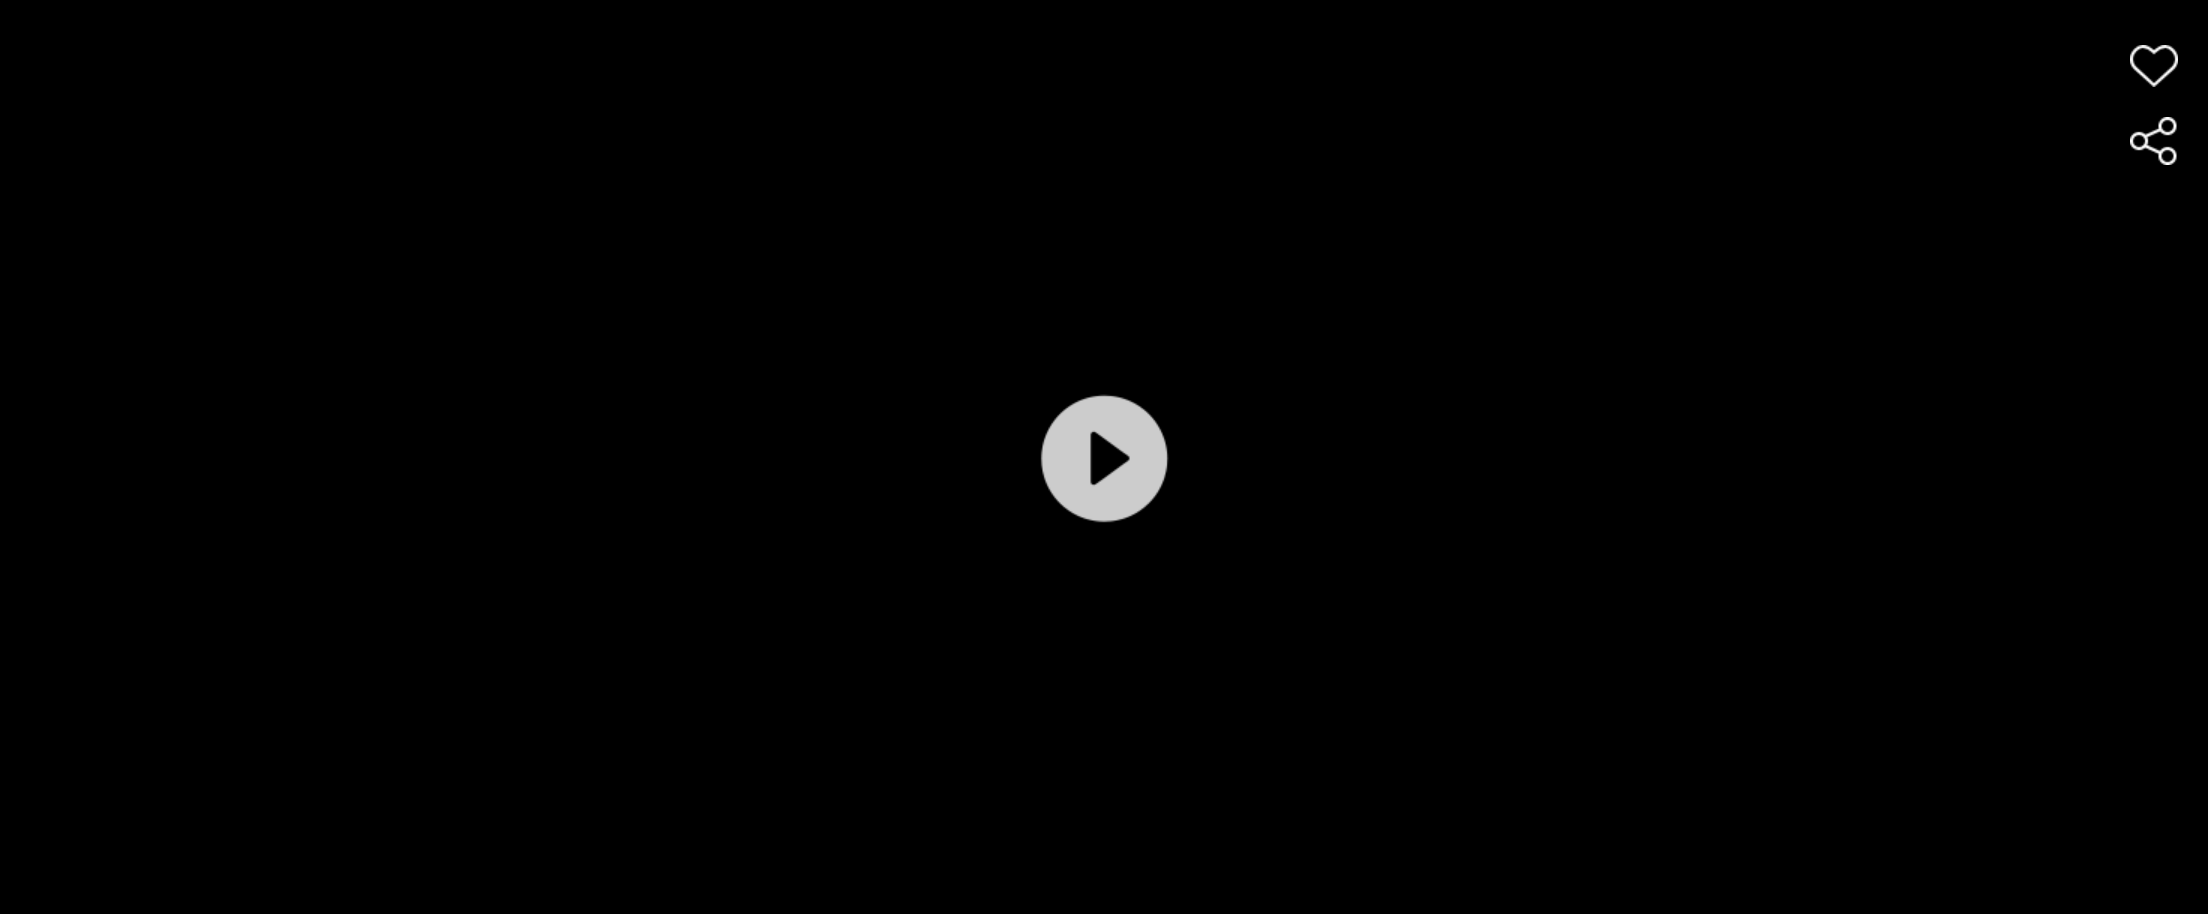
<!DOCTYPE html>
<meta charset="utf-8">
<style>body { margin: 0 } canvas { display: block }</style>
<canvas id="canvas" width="2208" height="914"></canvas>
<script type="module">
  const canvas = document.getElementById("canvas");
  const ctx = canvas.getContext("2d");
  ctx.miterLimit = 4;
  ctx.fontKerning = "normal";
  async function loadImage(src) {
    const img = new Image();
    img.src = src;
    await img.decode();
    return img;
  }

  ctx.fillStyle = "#000000";
  ctx.fillRect(0, 0, 2208, 914);
  ctx.drawImage(await loadImage("img1.png"), 2130, 45, 48, 42);
  ctx.drawImage(await loadImage("img2.png"), 2130, 117, 47, 48);
  ctx.drawImage(await loadImage("img3.png"), 1040, 394, 129, 129);
</script>
